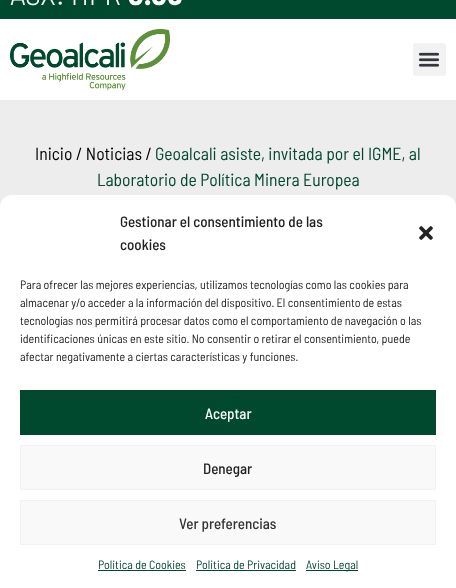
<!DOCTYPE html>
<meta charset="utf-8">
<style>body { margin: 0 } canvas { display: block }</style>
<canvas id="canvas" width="456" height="588"></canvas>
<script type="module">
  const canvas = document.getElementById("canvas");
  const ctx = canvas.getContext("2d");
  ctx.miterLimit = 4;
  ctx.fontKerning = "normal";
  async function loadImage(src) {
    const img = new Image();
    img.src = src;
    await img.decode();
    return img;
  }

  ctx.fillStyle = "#ffffff";
  ctx.fillRect(0, 0, 456, 588);
  ctx.fillStyle = "#00482e";
  ctx.fillRect(0, 0, 456, 19);
  ctx.drawImage(await loadImage("img1.png"), 10, 0, 172, 6);
  ctx.drawImage(await loadImage("img2.png"), 10, 29, 160, 61);
  ctx.fillStyle = "#f2f2f2";
  ctx.beginPath();
  ctx.roundRect(413, 43, 33, 33, 3);
  ctx.fill();
  ctx.drawImage(await loadImage("img3.png"), 418, 52, 22, 15);
  ctx.fillStyle = "#ededed";
  ctx.fillRect(0, 100, 456, 107);
  ctx.font = "17.6px Barlow Semi Condensed";
  ctx.fillStyle = "#000000";
  ctx.fillText("Inicio / Noticias /", 35, 160);
  ctx.fillStyle = "#04482f";
  ctx.fillText("Geoalcali asiste, invitada por el IGME, al", 155, 160);
  ctx.fillText("Laboratorio de Política Minera Europea", 97, 186);
  ctx.fillStyle = "#808080";
  ctx.filter = "blur(2.5px)";
  ctx.beginPath();
  ctx.roundRect(386, 514, 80, 60, 2);
  ctx.fill();
  ctx.filter = "none";
  ctx.fillStyle = "#ffffff";
  ctx.beginPath();
  ctx.roundRect(0, 195, 456, 393, 12);
  ctx.fill();
  ctx.font = "500 15px Barlow Semi Condensed";
  ctx.fillStyle = "#222222";
  ctx.fillText("Gestionar el consentimiento de las", 120, 227);
  ctx.fillText("cookies", 120, 250);
  ctx.drawImage(await loadImage("img4.png"), 419, 226, 14, 14);
  ctx.font = "12px Barlow Semi Condensed";
  ctx.fillText("Para ofrecer las mejores experiencias, utilizamos tecnologías como las cookies para", 20, 289);
  ctx.fillText("almacenar y/o acceder a la información del dispositivo. El consentimiento de estas", 20, 307);
  ctx.fillText("tecnologías nos permitirá procesar datos como el comportamiento de navegación o las", 20, 325);
  ctx.fillText("identificaciones únicas en este sitio. No consentir o retirar el consentimiento, puede", 20, 343);
  ctx.fillText("afectar negativamente a ciertas características y funciones.", 20, 361);
  ctx.fillStyle = "#00482e";
  ctx.fillRect(20, 390, 416, 45);
  ctx.font = "500 15px Barlow Semi Condensed";
  ctx.fillStyle = "#ffffff";
  ctx.fillText("Aceptar", 205, 419);
  ctx.fillStyle = "#f9f9f9";
  ctx.beginPath();
  ctx.rect(20.5, 445.5, 415, 44);
  ctx.fill();
  ctx.strokeStyle = "#f2f2f2";
  ctx.stroke();
  ctx.fillStyle = "#222222";
  ctx.fillText("Denegar", 203, 474);
  ctx.fillStyle = "#f9f9f9";
  ctx.beginPath();
  ctx.rect(20.5, 500.5, 415, 44);
  ctx.fill();
  ctx.stroke();
  ctx.fillStyle = "#333333";
  ctx.fillText("Ver preferencias", 179, 529);
  ctx.font = "12px Barlow Semi Condensed";
  ctx.fillStyle = "#04482f";
  ctx.fillText("Politica de Cookies", 98, 569);
  ctx.fillStyle = "#00482e";
  ctx.fillRect(98, 570, 88, 1);
  ctx.fillStyle = "#04482f";
  ctx.fillText("Politica de Privacidad", 196, 569);
  ctx.fillStyle = "#00482e";
  ctx.fillRect(196, 570, 100, 1);
  ctx.fillRect(306, 570, 52, 1);
  ctx.fillStyle = "#04482f";
  ctx.fillText("Aviso Legal", 306, 569);
</script>
